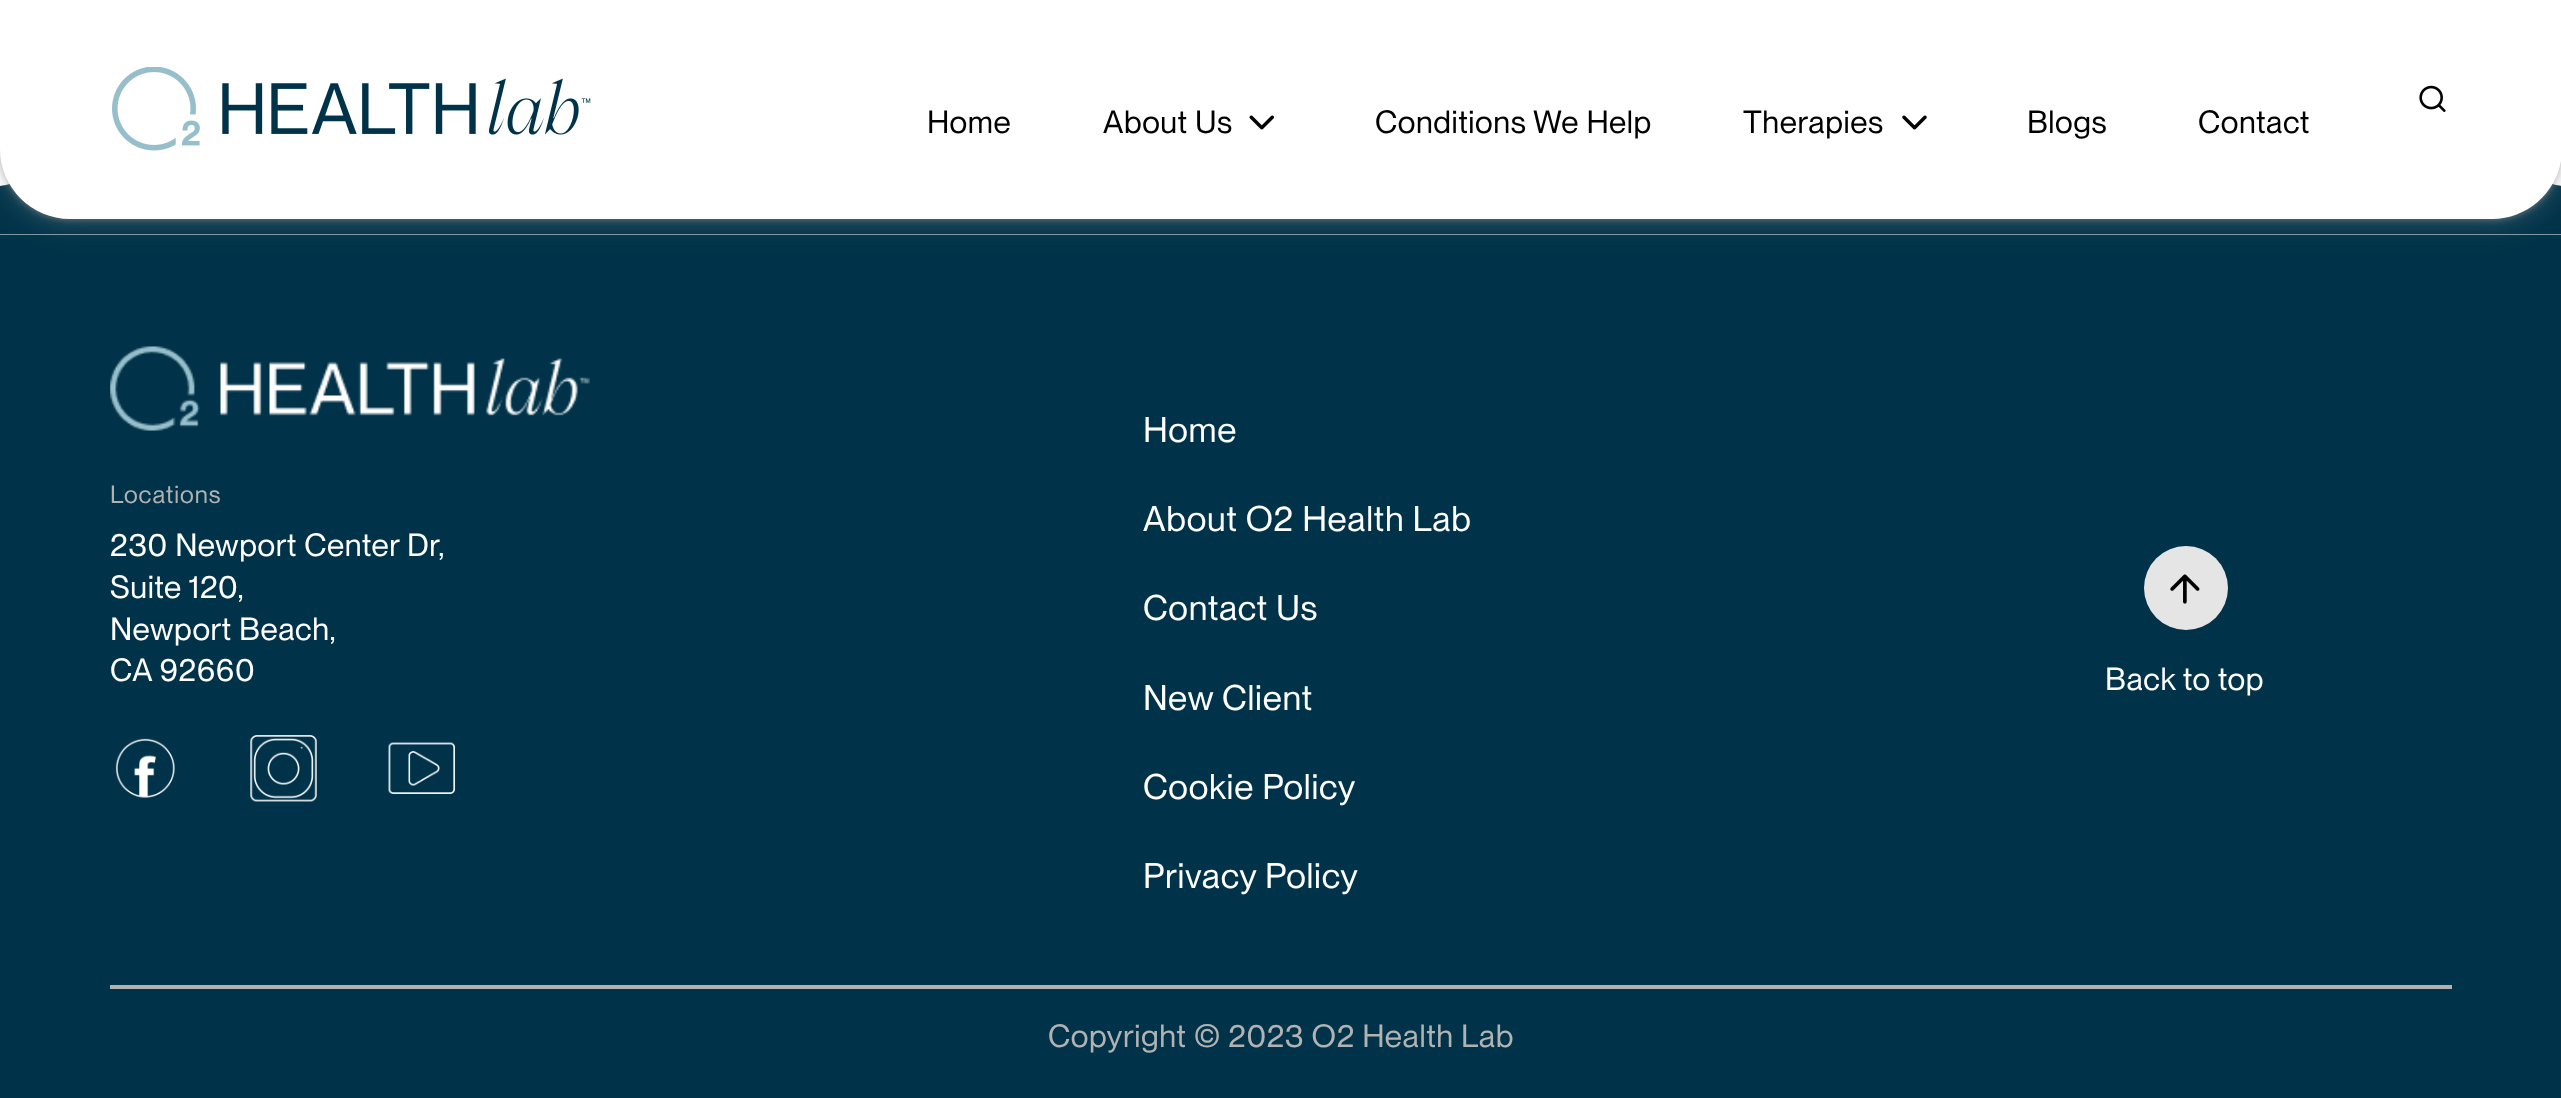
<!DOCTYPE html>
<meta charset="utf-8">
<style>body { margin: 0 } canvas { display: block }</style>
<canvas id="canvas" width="2561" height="1098"></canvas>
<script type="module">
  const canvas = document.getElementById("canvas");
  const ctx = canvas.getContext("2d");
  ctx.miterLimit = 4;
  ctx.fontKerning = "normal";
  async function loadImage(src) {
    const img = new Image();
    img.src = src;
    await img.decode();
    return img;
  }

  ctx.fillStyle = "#ffffff";
  ctx.fillRect(0, 0, 2561, 1098);
  ctx.fillStyle = "#003349";
  ctx.fillRect(0, 235, 2561, 863);
  ctx.drawImage(await loadImage("img5.png"), 0, 183, 2561, 52);
  ctx.fillStyle = "rgba(153, 153, 153, 0.32)";
  ctx.filter = "blur(14px)";
  ctx.beginPath();
  ctx.roundRect(0, 4, 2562, 218, 70);
  ctx.fill();
  ctx.filter = "none";
  ctx.fillStyle = "rgba(153, 153, 153, 0.64)";
  ctx.filter = "blur(3.5px)";
  ctx.beginPath();
  ctx.roundRect(0, 0, 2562, 219, 70);
  ctx.fill();
  ctx.filter = "none";
  ctx.fillStyle = "#ffffff";
  ctx.beginPath();
  ctx.moveTo(0, 0);
  ctx.lineTo(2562, 0);
  ctx.lineTo(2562, 149);
  ctx.bezierCurveTo(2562, 187.5, 2530.5, 219, 2492, 219);
  ctx.lineTo(70, 219);
  ctx.bezierCurveTo(31.5, 219, 0, 187.5, 0, 149);
  ctx.closePath();
  ctx.fill();
  ctx.drawImage(await loadImage("img1.png"), 112, 67, 479, 84);
  ctx.drawImage(await loadImage("img2.png"), 2419, 85, 27, 27);
  ctx.letterSpacing = "0.6px";
  ctx.font = "31.5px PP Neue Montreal";
  ctx.fillStyle = "#000000";
  ctx.fillText("Home", 927, 133);
  ctx.fillText("About Us", 1103, 133);
  ctx.drawImage(await loadImage("img3.png"), 1249, 115, 25, 15);
  ctx.fillText("Conditions We Help", 1375, 133);
  ctx.fillText("Therapies", 1743, 133);
  ctx.drawImage(await loadImage("img4.png"), 1902, 115, 25, 15);
  ctx.fillText("Blogs", 2027, 133);
  ctx.fillText("Contact", 2198, 133);
  ctx.drawImage(await loadImage("img6.png"), 110, 346, 480, 85);
  ctx.letterSpacing = "1px";
  ctx.font = "24.5px PP Neue Montreal";
  ctx.fillStyle = "#b2b2b2";
  ctx.fillText("Locations", 110, 503);
  ctx.letterSpacing = "0.6px";
  ctx.font = "31.5px PP Neue Montreal";
  ctx.fillStyle = "#ffffff";
  ctx.fillText("230 Newport Center Dr,", 110, 556);
  ctx.fillText("Suite 120,", 110, 598);
  ctx.fillText("Newport Beach,", 110, 640);
  ctx.fillText("CA 92660", 110, 681);
  ctx.drawImage(await loadImage("img7.png"), 115, 738, 60, 60);
  ctx.drawImage(await loadImage("img8.png"), 250, 735, 67, 67);
  ctx.drawImage(await loadImage("img9.png"), 388, 742, 68, 52);
  ctx.letterSpacing = "0.75px";
  ctx.font = "35px PP Neue Montreal";
  ctx.fillText("Home", 1143, 442);
  ctx.fillText("About O2 Health Lab", 1143, 531);
  ctx.fillText("Contact Us", 1143, 620);
  ctx.fillText("New Client", 1143, 710);
  ctx.fillText("Cookie Policy", 1143, 799);
  ctx.fillText("Privacy Policy", 1143, 888);
  ctx.fillStyle = "#e5e5e5";
  ctx.beginPath();
  ctx.arc(2186, 588, 42, 0, Math.PI * 2);
  ctx.fill();
  ctx.drawImage(await loadImage("img10.png"), 2170, 574, 30, 30);
  ctx.letterSpacing = "0.6px";
  ctx.font = "31.5px PP Neue Montreal";
  ctx.fillStyle = "#ffffff";
  ctx.fillText("Back to top", 2105, 690);
  ctx.fillStyle = "#b2b2b2";
  ctx.fillRect(110, 985, 2342, 4);
  ctx.fillText("Copyright © 2023 O2 Health Lab", 1048, 1047);
</script>
